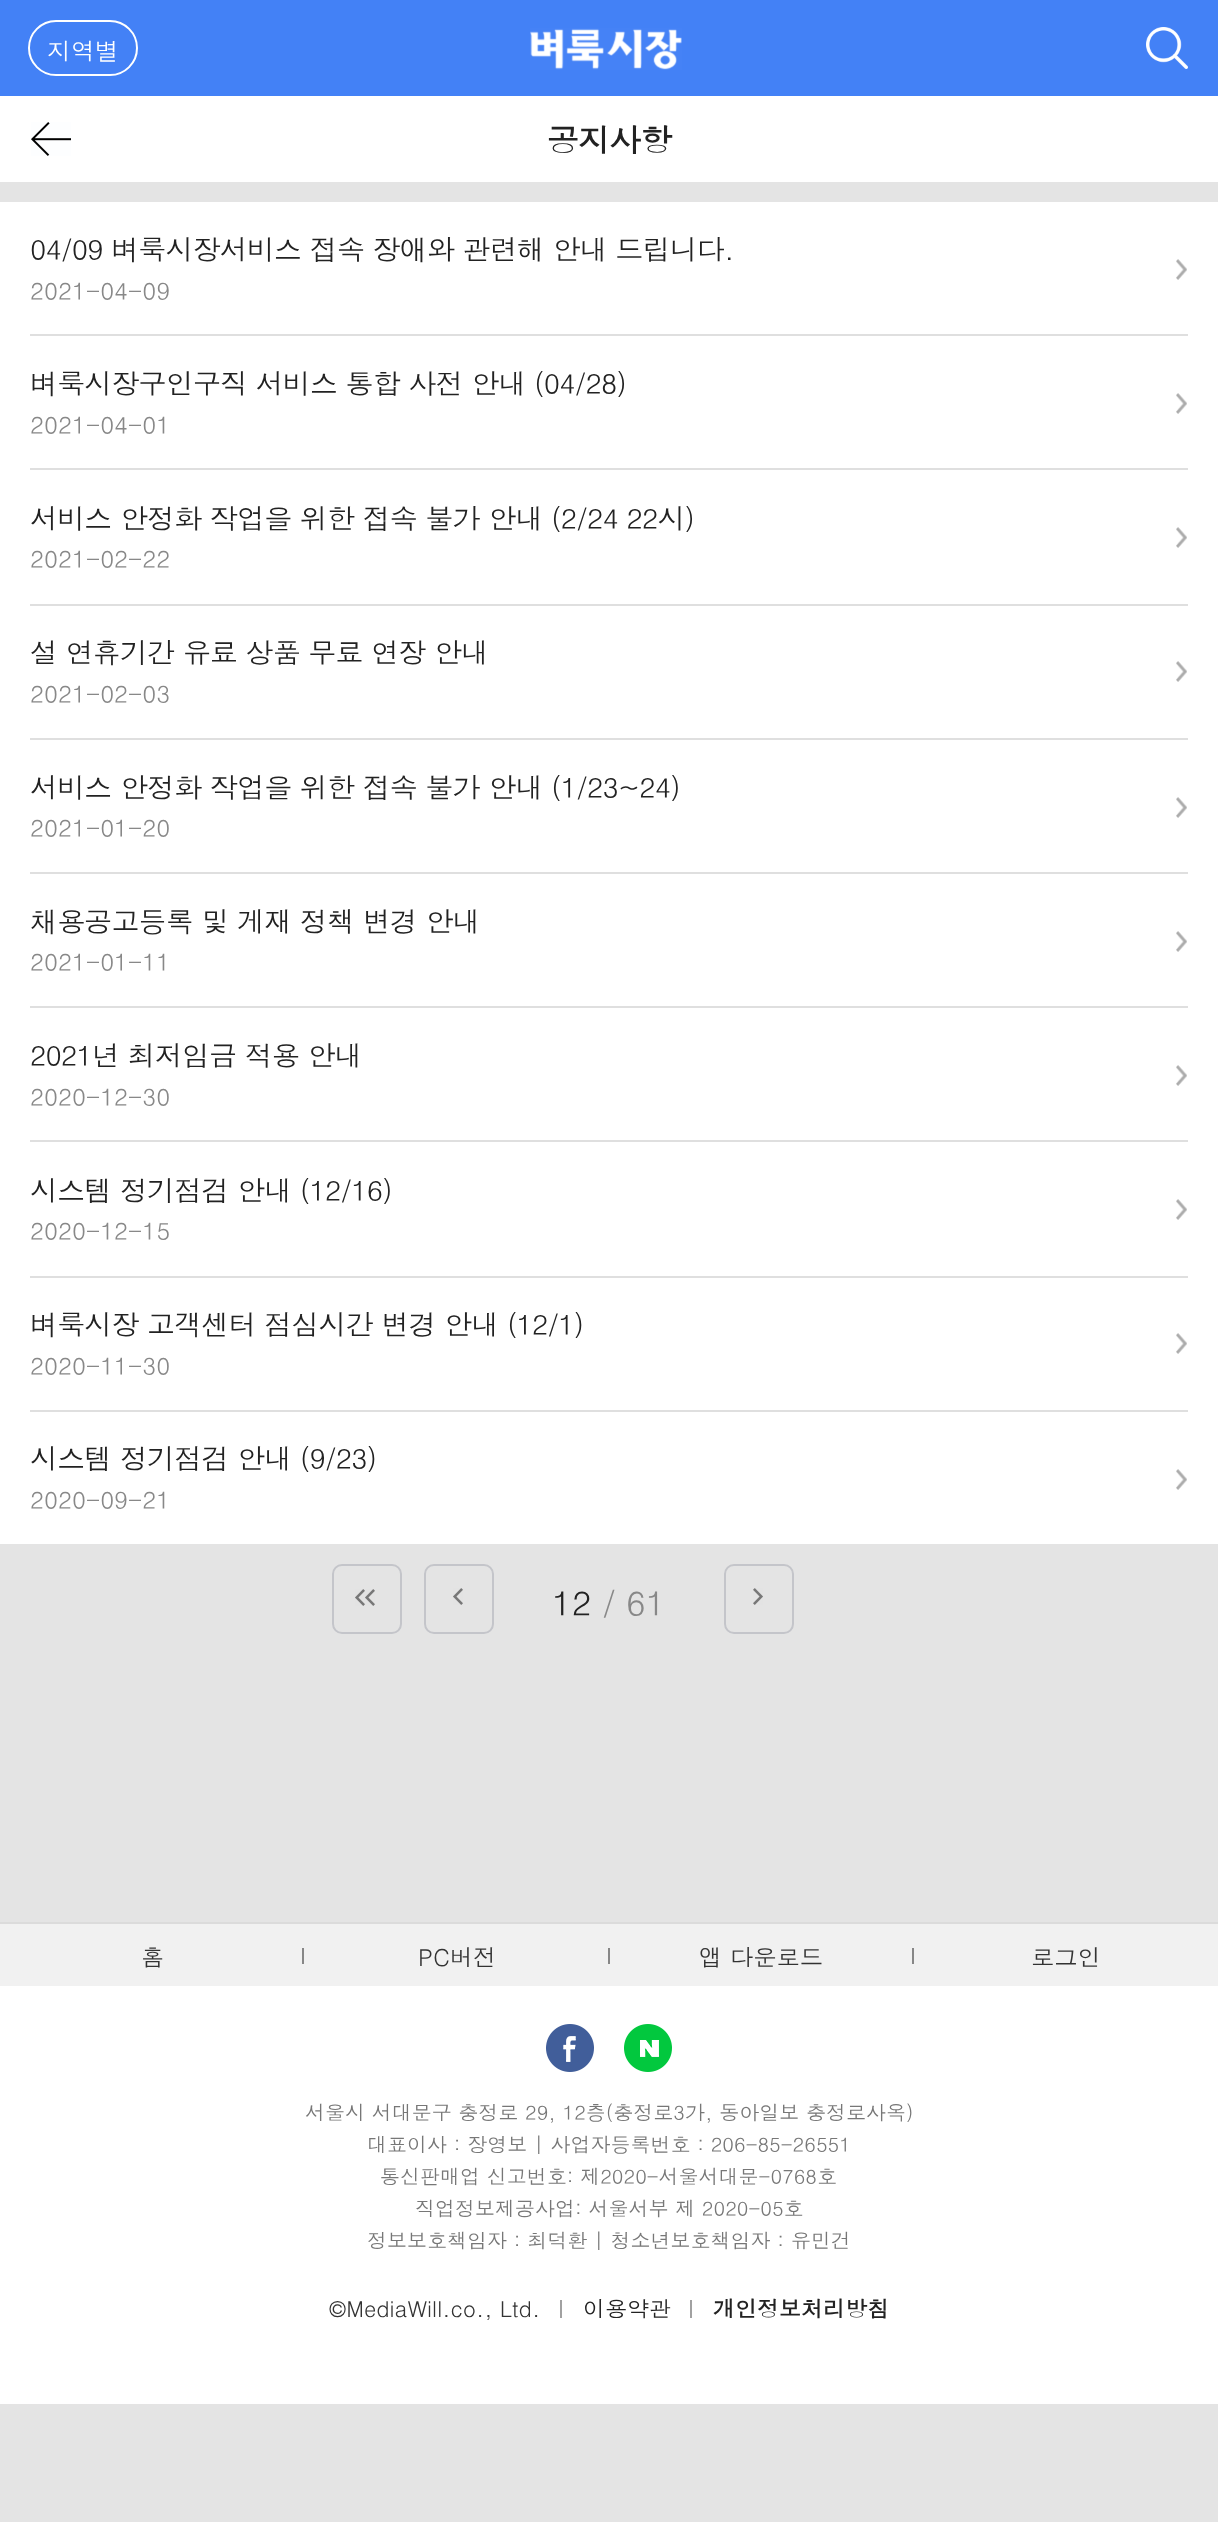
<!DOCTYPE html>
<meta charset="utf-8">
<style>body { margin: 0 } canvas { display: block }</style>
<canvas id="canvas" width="1218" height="2522"></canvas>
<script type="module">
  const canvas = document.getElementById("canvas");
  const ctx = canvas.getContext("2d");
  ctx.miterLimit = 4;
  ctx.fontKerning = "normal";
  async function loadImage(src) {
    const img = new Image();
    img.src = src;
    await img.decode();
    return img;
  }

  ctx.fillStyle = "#e4e4e4";
  ctx.fillRect(0, 0, 1218, 2522);
  ctx.fillStyle = "#4381f6";
  ctx.fillRect(0, 0, 1218, 96);
  ctx.beginPath();
  ctx.roundRect(29, 21, 108, 54, 27);
  ctx.strokeStyle = "#ffffff";
  ctx.lineWidth = 2;
  ctx.stroke();
  ctx.font = "24px Dotum";
  ctx.fillStyle = "#ffffff";
  ctx.fillText("지역별", 47, 60);
  ctx.drawImage(await loadImage("img1.png"), 530, 28, 152, 42);
  ctx.drawImage(await loadImage("img2.png"), 1146, 27, 42, 42);
  ctx.fillRect(0, 96, 1218, 86);
  ctx.drawImage(await loadImage("img3.png"), 31, 122, 40, 34);
  ctx.letterSpacing = "-1px";
  ctx.font = "bold 32px Dotum";
  ctx.fillStyle = "#222222";
  ctx.fillText("공지사항", 547, 152);
  ctx.fillStyle = "#ffffff";
  ctx.fillRect(0, 202, 1218, 1342);
  ctx.drawImage(await loadImage("img4.png"), 1176, 259, 11, 21);
  ctx.letterSpacing = "-0.85px";
  ctx.font = "28px Dotum";
  ctx.fillStyle = "#222222";
  ctx.fillText("04/09 벼룩시장서비스 접속 장애와 관련해 안내 드립니다.", 30, 260);
  ctx.letterSpacing = "0px";
  ctx.font = "24px Dotum";
  ctx.fillStyle = "#888888";
  ctx.fillText("2021-04-09", 30, 300);
  ctx.fillStyle = "#dfdfdf";
  ctx.fillRect(30, 334, 1158, 2);
  ctx.drawImage(await loadImage("img5.png"), 1176, 393, 11, 21);
  ctx.letterSpacing = "-0.85px";
  ctx.font = "28px Dotum";
  ctx.fillStyle = "#222222";
  ctx.fillText("벼룩시장구인구직 서비스 통합 사전 안내 (04/28)", 30, 394);
  ctx.letterSpacing = "0px";
  ctx.font = "24px Dotum";
  ctx.fillStyle = "#888888";
  ctx.fillText("2021-04-01", 30, 434);
  ctx.fillStyle = "#dfdfdf";
  ctx.fillRect(30, 468, 1158, 2);
  ctx.drawImage(await loadImage("img5.png"), 1176, 527, 11, 21);
  ctx.letterSpacing = "-0.85px";
  ctx.font = "28px Dotum";
  ctx.fillStyle = "#222222";
  ctx.fillText("서비스 안정화 작업을 위한 접속 불가 안내 (2/24 22시)", 30, 529);
  ctx.letterSpacing = "0px";
  ctx.font = "24px Dotum";
  ctx.fillStyle = "#888888";
  ctx.fillText("2021-02-22", 30, 568);
  ctx.fillStyle = "#dfdfdf";
  ctx.fillRect(30, 604, 1158, 2);
  ctx.drawImage(await loadImage("img5.png"), 1176, 661, 11, 21);
  ctx.letterSpacing = "-0.85px";
  ctx.font = "28px Dotum";
  ctx.fillStyle = "#222222";
  ctx.fillText("설 연휴기간 유료 상품 무료 연장 안내", 30, 663);
  ctx.letterSpacing = "0px";
  ctx.font = "24px Dotum";
  ctx.fillStyle = "#888888";
  ctx.fillText("2021-02-03", 30, 703);
  ctx.fillStyle = "#dfdfdf";
  ctx.fillRect(30, 738, 1158, 2);
  ctx.drawImage(await loadImage("img6.png"), 1176, 797, 11, 21);
  ctx.letterSpacing = "-0.85px";
  ctx.font = "28px Dotum";
  ctx.fillStyle = "#222222";
  ctx.fillText("서비스 안정화 작업을 위한 접속 불가 안내 (1/23~24)", 30, 798);
  ctx.letterSpacing = "0px";
  ctx.font = "24px Dotum";
  ctx.fillStyle = "#888888";
  ctx.fillText("2021-01-20", 30, 837);
  ctx.fillStyle = "#dfdfdf";
  ctx.fillRect(30, 872, 1158, 2);
  ctx.drawImage(await loadImage("img5.png"), 1176, 931, 11, 21);
  ctx.letterSpacing = "-0.85px";
  ctx.font = "28px Dotum";
  ctx.fillStyle = "#222222";
  ctx.fillText("채용공고등록 및 게재 정책 변경 안내", 30, 932);
  ctx.letterSpacing = "0px";
  ctx.font = "24px Dotum";
  ctx.fillStyle = "#888888";
  ctx.fillText("2021-01-11", 30, 971);
  ctx.fillStyle = "#dfdfdf";
  ctx.fillRect(30, 1006, 1158, 2);
  ctx.drawImage(await loadImage("img5.png"), 1176, 1065, 11, 21);
  ctx.letterSpacing = "-0.85px";
  ctx.font = "28px Dotum";
  ctx.fillStyle = "#222222";
  ctx.fillText("2021년 최저임금 적용 안내", 30, 1066);
  ctx.letterSpacing = "0px";
  ctx.font = "24px Dotum";
  ctx.fillStyle = "#888888";
  ctx.fillText("2020-12-30", 30, 1106);
  ctx.fillStyle = "#dfdfdf";
  ctx.fillRect(30, 1140, 1158, 2);
  ctx.drawImage(await loadImage("img5.png"), 1176, 1199, 11, 21);
  ctx.letterSpacing = "-0.85px";
  ctx.font = "28px Dotum";
  ctx.fillStyle = "#222222";
  ctx.fillText("시스템 정기점검 안내 (12/16)", 30, 1201);
  ctx.letterSpacing = "0px";
  ctx.font = "24px Dotum";
  ctx.fillStyle = "#888888";
  ctx.fillText("2020-12-15", 30, 1240);
  ctx.fillStyle = "#dfdfdf";
  ctx.fillRect(30, 1276, 1158, 2);
  ctx.drawImage(await loadImage("img6.png"), 1176, 1333, 11, 21);
  ctx.letterSpacing = "-0.85px";
  ctx.font = "28px Dotum";
  ctx.fillStyle = "#222222";
  ctx.fillText("벼룩시장 고객센터 점심시간 변경 안내 (12/1)", 30, 1335);
  ctx.letterSpacing = "0px";
  ctx.font = "24px Dotum";
  ctx.fillStyle = "#888888";
  ctx.fillText("2020-11-30", 30, 1375);
  ctx.fillStyle = "#dfdfdf";
  ctx.fillRect(30, 1410, 1158, 2);
  ctx.drawImage(await loadImage("img5.png"), 1176, 1469, 11, 21);
  ctx.letterSpacing = "-0.85px";
  ctx.font = "28px Dotum";
  ctx.fillStyle = "#222222";
  ctx.fillText("시스템 정기점검 안내 (9/23)", 30, 1469);
  ctx.letterSpacing = "0px";
  ctx.font = "24px Dotum";
  ctx.fillStyle = "#888888";
  ctx.fillText("2020-09-21", 30, 1509);
  ctx.beginPath();
  ctx.roundRect(333, 1565, 68, 68, 9);
  ctx.strokeStyle = "#c4c5ca";
  ctx.stroke();
  ctx.drawImage(await loadImage("img7.png"), 355, 1589, 20, 17);
  ctx.beginPath();
  ctx.roundRect(425, 1565, 68, 68, 9);
  ctx.stroke();
  ctx.drawImage(await loadImage("img8.png"), 453, 1588, 10, 17);
  ctx.font = "34px Dotum";
  ctx.fillStyle = "#222222";
  ctx.fillText("12", 552, 1616);
  ctx.fillStyle = "#888888";
  ctx.fillText("/", 602, 1616);
  ctx.fillText("61", 626, 1616);
  ctx.beginPath();
  ctx.roundRect(725, 1565, 68, 68, 9);
  ctx.stroke();
  ctx.drawImage(await loadImage("img9.png"), 753, 1588, 10, 17);
  ctx.fillStyle = "#ffffff";
  ctx.fillRect(0, 1986, 1218, 418);
  ctx.fillStyle = "#dbdbdb";
  ctx.fillRect(0, 1922, 1218, 2);
  ctx.fillStyle = "#f1f1f1";
  ctx.fillRect(0, 1924, 1218, 62);
  ctx.font = "23.25px Dotum";
  ctx.fillStyle = "#333333";
  ctx.fillText("홈", 141, 1966);
  ctx.fillStyle = "#878787";
  ctx.fillRect(302, 1948, 2, 16);
  ctx.fillStyle = "#333333";
  ctx.fillText("PC버전", 418, 1966);
  ctx.fillStyle = "#878787";
  ctx.fillRect(608, 1948, 2, 16);
  ctx.fillStyle = "#333333";
  ctx.fillText("앱 다운로드", 699, 1966);
  ctx.fillStyle = "#878787";
  ctx.fillRect(912, 1948, 2, 16);
  ctx.fillStyle = "#333333";
  ctx.fillText("로그인", 1031, 1966);
  ctx.drawImage(await loadImage("img10.png"), 546, 2024, 48, 48);
  ctx.drawImage(await loadImage("img11.png"), 624, 2024, 48, 48);
  ctx.font = "20px Dotum";
  ctx.fillStyle = "#777777";
  ctx.fillText("서울시 서대문구 충정로 29, 12층(충정로3가, 동아일보 충정로사옥)", 305, 2120);
  ctx.fillText("대표이사 : 장영보 | 사업자등록번호 : 206-85-26551", 367, 2152);
  ctx.fillText("통신판매업 신고번호: 제2020-서울서대문-0768호", 380, 2184);
  ctx.fillText("직업정보제공사업: 서울서부 제 2020-05호", 415, 2216);
  ctx.fillText("정보보호책임자 : 최덕환 | 청소년보호책임자 : 유민건", 367, 2248);
  ctx.font = "22px Dotum";
  ctx.fillStyle = "#333333";
  ctx.fillText("©MediaWill.co., Ltd.", 329, 2317);
  ctx.fillStyle = "#a1a1a1";
  ctx.fillRect(560, 2300, 2, 18);
  ctx.fillStyle = "#222222";
  ctx.fillText("이용약관", 583, 2317);
  ctx.fillStyle = "#a1a1a1";
  ctx.fillRect(690, 2300, 2, 18);
  ctx.font = "bold 22px Dotum";
  ctx.fillStyle = "#222222";
  ctx.fillText("개인정보처리방침", 713, 2317);
</script>
